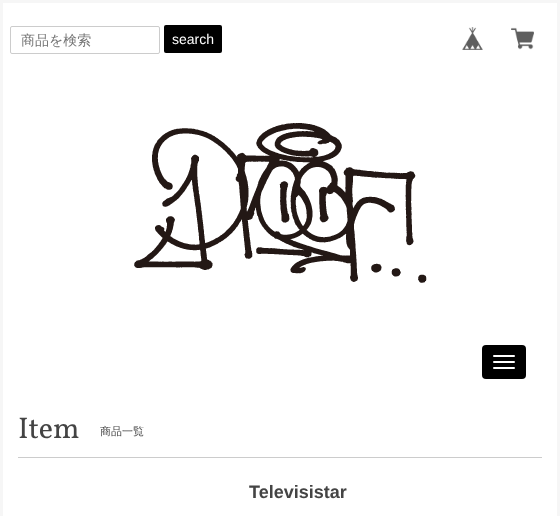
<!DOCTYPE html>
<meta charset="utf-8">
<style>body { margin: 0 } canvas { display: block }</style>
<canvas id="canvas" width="560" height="516"></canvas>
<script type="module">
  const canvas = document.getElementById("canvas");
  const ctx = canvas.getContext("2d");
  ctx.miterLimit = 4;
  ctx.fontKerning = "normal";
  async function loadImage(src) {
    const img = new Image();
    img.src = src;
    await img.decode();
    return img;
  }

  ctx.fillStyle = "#ffffff";
  ctx.fillRect(0, 0, 560, 516);
  ctx.strokeStyle = "#f6f6f6";
  ctx.lineWidth = 3;
  ctx.strokeRect(1.5, 1.5, 557, 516);
  ctx.beginPath();
  ctx.roundRect(10.5, 26.5, 149, 27, 1.5);
  ctx.strokeStyle = "#cccccc";
  ctx.lineWidth = 1;
  ctx.stroke();
  ctx.font = "500 14px WenQuanYi Zen Hei";
  ctx.fillStyle = "#757575";
  ctx.fillText("商品を検索", 21, 45);
  ctx.fillStyle = "#000000";
  ctx.beginPath();
  ctx.roundRect(164, 25, 58, 28, 2);
  ctx.fill();
  ctx.font = "14px Liberation Sans";
  ctx.fillStyle = "#ffffff";
  ctx.fillText("search", 172, 44);
  ctx.drawImage(await loadImage("img1.png"), 462, 27, 21, 23);
  ctx.drawImage(await loadImage("img2.png"), 511, 27, 23, 23);
  ctx.drawImage(await loadImage("img3.png"), 134, 123, 293, 160);
  ctx.fillStyle = "#000000";
  ctx.beginPath();
  ctx.roundRect(482, 345, 44, 34, 4);
  ctx.fill();
  ctx.fillStyle = "#ffffff";
  ctx.beginPath();
  ctx.roundRect(493, 355, 22, 2, 1);
  ctx.fill();
  ctx.beginPath();
  ctx.roundRect(493, 361, 22, 2, 1);
  ctx.fill();
  ctx.beginPath();
  ctx.roundRect(493, 367, 22, 2, 1);
  ctx.fill();
  ctx.fillStyle = "#cccccc";
  ctx.fillRect(18, 457, 524, 1);
  ctx.font = "30px Vollkorn";
  ctx.fillStyle = "#444444";
  ctx.fillText("Item", 18, 438);
  ctx.font = "500 11px WenQuanYi Zen Hei";
  ctx.fillText("商品一覧", 100, 435);
  ctx.font = "bold 18px Liberation Sans";
  ctx.fillText("Televisistar", 249, 498);
</script>
